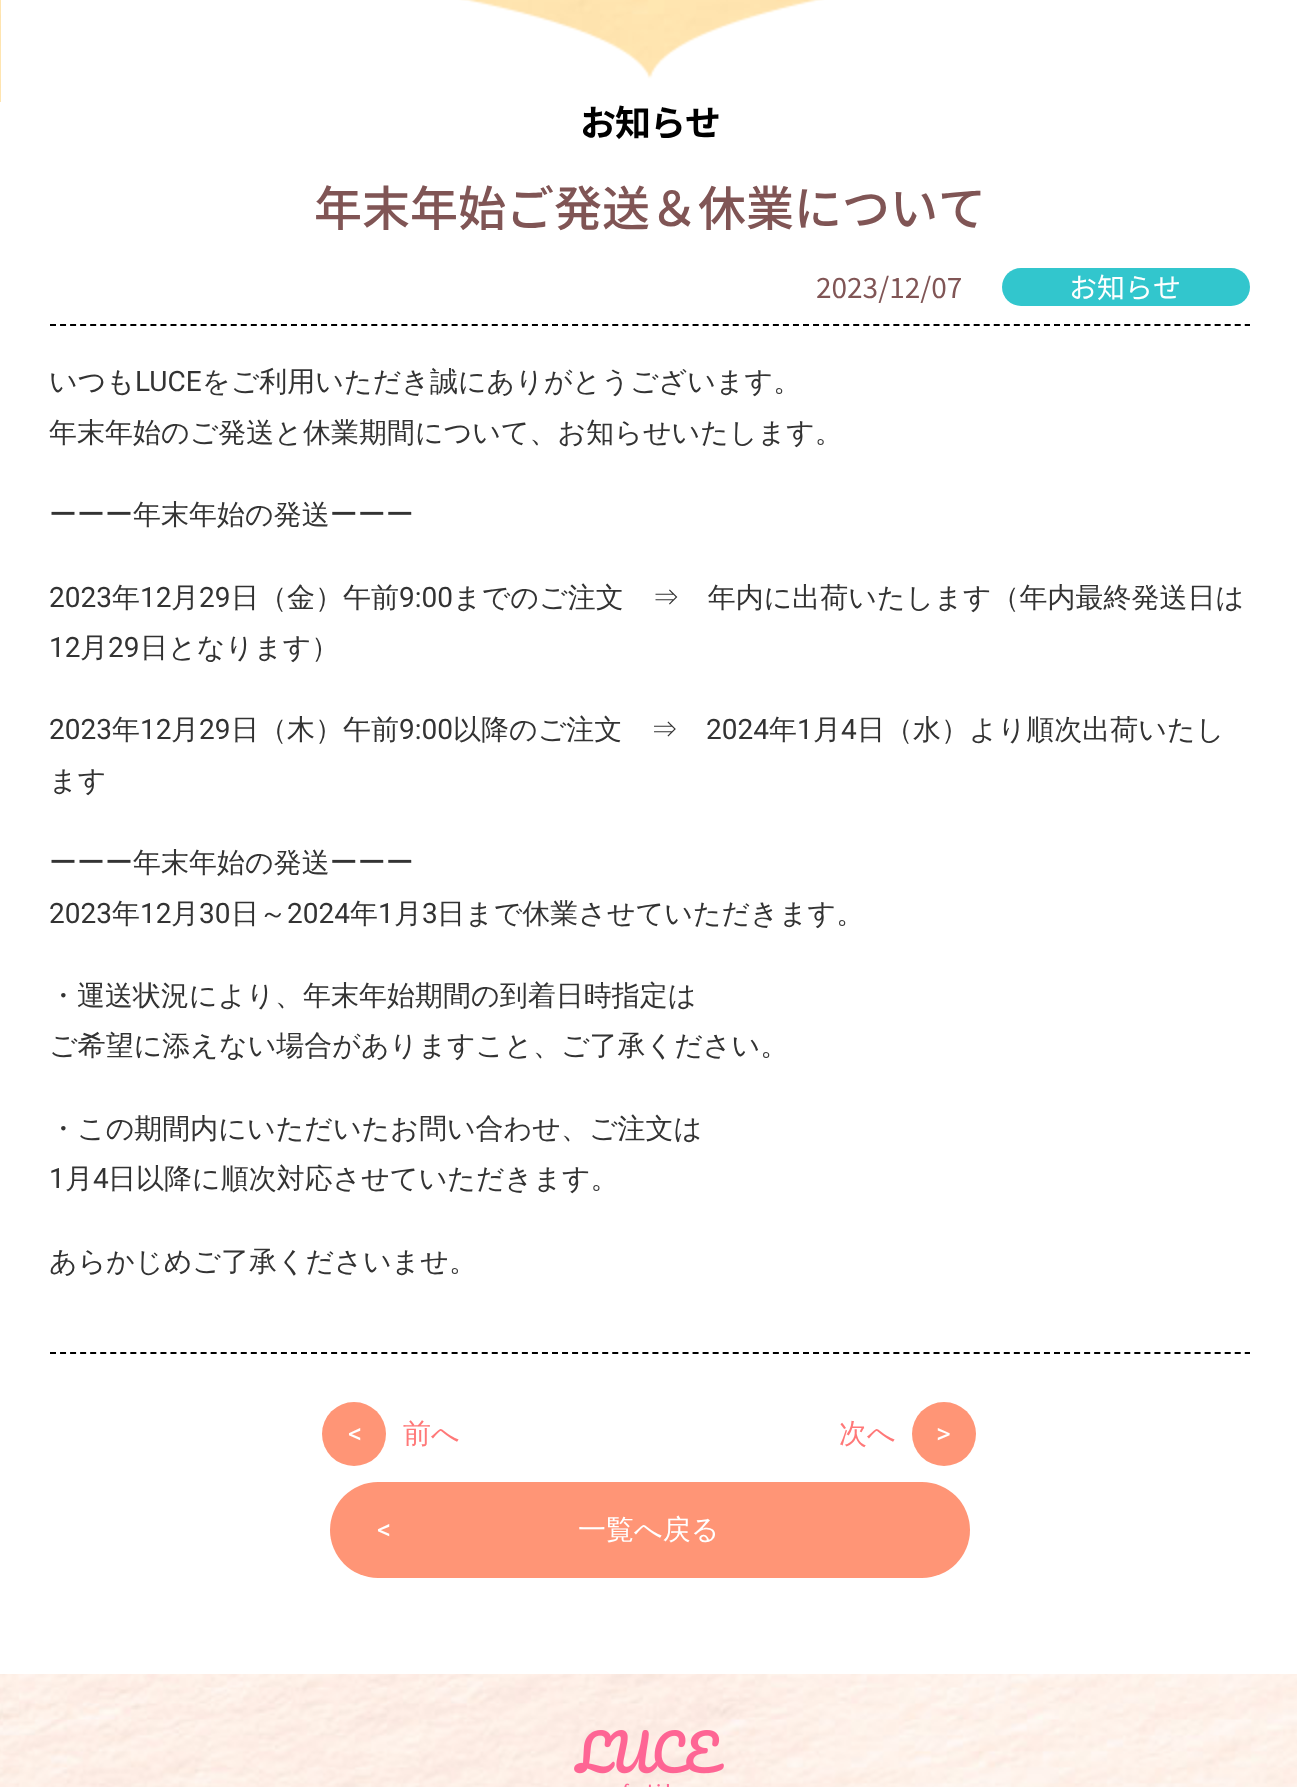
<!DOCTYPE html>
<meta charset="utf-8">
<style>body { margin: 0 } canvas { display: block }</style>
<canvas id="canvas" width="1297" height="1787"></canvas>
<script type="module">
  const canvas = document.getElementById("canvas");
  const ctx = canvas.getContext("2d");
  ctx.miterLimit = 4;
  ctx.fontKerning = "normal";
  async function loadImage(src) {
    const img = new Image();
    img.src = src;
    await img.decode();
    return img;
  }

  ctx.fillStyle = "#ffffff";
  ctx.fillRect(0, 0, 1297, 1787);
  ctx.drawImage(await loadImage("img1.png"), 0, 0, 825, 102);
  ctx.drawImage(await loadImage("img2.png"), 1, 0, 1296, 102);
  ctx.letterSpacing = "-1px";
  ctx.font = "bold 36px Noto Sans JP";
  ctx.fillStyle = "#000000";
  ctx.fillText("お知らせ", 580, 136);
  ctx.letterSpacing = "0px";
  ctx.font = "500 48px Noto Sans JP";
  ctx.fillStyle = "#805555";
  ctx.fillText("年末年始ご発送＆休業について", 314, 226);
  ctx.beginPath();
  ctx.moveTo(50, 325);
  ctx.lineTo(1250, 325);
  ctx.strokeStyle = "#000000";
  ctx.lineWidth = 2;
  ctx.setLineDash([6, 4.04]);
  ctx.stroke();
  ctx.font = "28px Noto Sans JP";
  ctx.fillText("2023/12/07", 816, 298);
  ctx.fillStyle = "#32c6cd";
  ctx.beginPath();
  ctx.roundRect(1002, 268, 248, 38, 19);
  ctx.fill();
  ctx.fillStyle = "#ffffff";
  ctx.fillText("お知らせ", 1069, 298);
  ctx.beginPath();
  ctx.moveTo(50, 1353);
  ctx.lineTo(1250, 1353);
  ctx.stroke();
  ctx.font = "500 28px WenQuanYi Zen Hei";
  ctx.fillStyle = "#333333";
  ctx.fillText("いつも", 49, 391);
  ctx.font = "28px Roboto";
  ctx.fillText("LUCE", 135, 391);
  ctx.font = "500 28px WenQuanYi Zen Hei";
  ctx.fillText("をご利用いただき誠にありがとうございます。", 202, 391);
  ctx.fillText("年末年始のご発送と休業期間について、お知らせいたします。", 49, 442);
  ctx.fillText("ーーー年末年始の発送ーーー", 49, 524);
  ctx.font = "28px Roboto";
  ctx.fillText("2023", 49, 607);
  ctx.font = "500 28px WenQuanYi Zen Hei";
  ctx.fillText("年", 112, 607);
  ctx.font = "28px Roboto";
  ctx.fillText("12", 140, 607);
  ctx.font = "500 28px WenQuanYi Zen Hei";
  ctx.fillText("月", 171, 607);
  ctx.font = "28px Roboto";
  ctx.fillText("29", 199, 607);
  ctx.font = "500 28px WenQuanYi Zen Hei";
  ctx.fillText("日（金）午前", 231, 607);
  ctx.font = "28px Roboto";
  ctx.fillText("9:00", 399, 607);
  ctx.font = "500 28px WenQuanYi Zen Hei";
  ctx.fillText("までのご注文　⇒　年内に出荷いたします（年内最終発送日は", 453, 607);
  ctx.font = "28px Roboto";
  ctx.fillText("12", 49, 657);
  ctx.font = "500 28px WenQuanYi Zen Hei";
  ctx.fillText("月", 80, 657);
  ctx.font = "28px Roboto";
  ctx.fillText("29", 108, 657);
  ctx.font = "500 28px WenQuanYi Zen Hei";
  ctx.fillText("日となります）", 140, 657);
  ctx.font = "28px Roboto";
  ctx.fillText("2023", 49, 739);
  ctx.font = "500 28px WenQuanYi Zen Hei";
  ctx.fillText("年", 112, 739);
  ctx.font = "28px Roboto";
  ctx.fillText("12", 140, 739);
  ctx.font = "500 28px WenQuanYi Zen Hei";
  ctx.fillText("月", 171, 739);
  ctx.font = "28px Roboto";
  ctx.fillText("29", 199, 739);
  ctx.font = "500 28px WenQuanYi Zen Hei";
  ctx.fillText("日（木）午前", 231, 739);
  ctx.font = "28px Roboto";
  ctx.fillText("9:00", 399, 739);
  ctx.font = "500 28px WenQuanYi Zen Hei";
  ctx.fillText("以降のご注文　⇒", 453, 739);
  ctx.font = "28px Roboto";
  ctx.fillText("2024", 706, 739);
  ctx.font = "500 28px WenQuanYi Zen Hei";
  ctx.fillText("年", 769, 739);
  ctx.font = "28px Roboto";
  ctx.fillText("1", 797, 739);
  ctx.font = "500 28px WenQuanYi Zen Hei";
  ctx.fillText("月", 813, 739);
  ctx.font = "28px Roboto";
  ctx.fillText("4", 841, 739);
  ctx.font = "500 28px WenQuanYi Zen Hei";
  ctx.fillText("日（水）より順次出荷いたし", 857, 739);
  ctx.fillText("ます", 49, 790);
  ctx.fillText("ーーー年末年始の発送ーーー", 49, 872);
  ctx.font = "28px Roboto";
  ctx.fillText("2023", 49, 923);
  ctx.font = "500 28px WenQuanYi Zen Hei";
  ctx.fillText("年", 112, 923);
  ctx.font = "28px Roboto";
  ctx.fillText("12", 140, 923);
  ctx.font = "500 28px WenQuanYi Zen Hei";
  ctx.fillText("月", 171, 923);
  ctx.font = "28px Roboto";
  ctx.fillText("30", 199, 923);
  ctx.font = "500 28px WenQuanYi Zen Hei";
  ctx.fillText("日～", 231, 923);
  ctx.font = "28px Roboto";
  ctx.fillText("2024", 287, 923);
  ctx.font = "500 28px WenQuanYi Zen Hei";
  ctx.fillText("年", 350, 923);
  ctx.font = "28px Roboto";
  ctx.fillText("1", 378, 923);
  ctx.font = "500 28px WenQuanYi Zen Hei";
  ctx.fillText("月", 394, 923);
  ctx.font = "28px Roboto";
  ctx.fillText("3", 422, 923);
  ctx.font = "500 28px WenQuanYi Zen Hei";
  ctx.fillText("日まで休業させていただきます。", 437, 923);
  ctx.fillText("・運送状況により、年末年始期間の到着日時指定は", 49, 1005);
  ctx.fillText("ご希望に添えない場合がありますこと、ご了承ください。", 49, 1055);
  ctx.fillText("・この期間内にいただいたお問い合わせ、ご注文は", 49, 1138);
  ctx.font = "28px Roboto";
  ctx.fillText("1", 49, 1188);
  ctx.font = "500 28px WenQuanYi Zen Hei";
  ctx.fillText("月", 65, 1188);
  ctx.font = "28px Roboto";
  ctx.fillText("4", 93, 1188);
  ctx.font = "500 28px WenQuanYi Zen Hei";
  ctx.fillText("日以降に順次対応させていただきます。", 108, 1188);
  ctx.fillText("あらかじめご了承くださいませ。", 49, 1271);
  ctx.fillStyle = "#ff9576";
  ctx.beginPath();
  ctx.arc(354, 1434, 32, 0, Math.PI * 2);
  ctx.fill();
  ctx.font = "28px Roboto";
  ctx.fillStyle = "#ffffff";
  ctx.fillText("<", 348, 1443);
  ctx.font = "500 28px WenQuanYi Zen Hei";
  ctx.fillStyle = "#ff7878";
  ctx.fillText("前へ", 403, 1443);
  ctx.fillText("次へ", 839, 1443);
  ctx.fillStyle = "#ff9576";
  ctx.beginPath();
  ctx.arc(944, 1434, 32, 0, Math.PI * 2);
  ctx.fill();
  ctx.font = "28px Roboto";
  ctx.fillStyle = "#ffffff";
  ctx.fillText(">", 936, 1443);
  ctx.fillStyle = "#ff9576";
  ctx.beginPath();
  ctx.roundRect(330, 1482, 640, 96, 48);
  ctx.fill();
  ctx.fillStyle = "#ffffff";
  ctx.fillText("<", 377, 1539);
  ctx.font = "500 28px WenQuanYi Zen Hei";
  ctx.fillText("一覧へ戻る", 578, 1539);
  ctx.drawImage(await loadImage("img3.png"), 0, 1674, 1297, 113);
  ctx.drawImage(await loadImage("img4.png"), 574, 1730, 150, 57);
</script>
